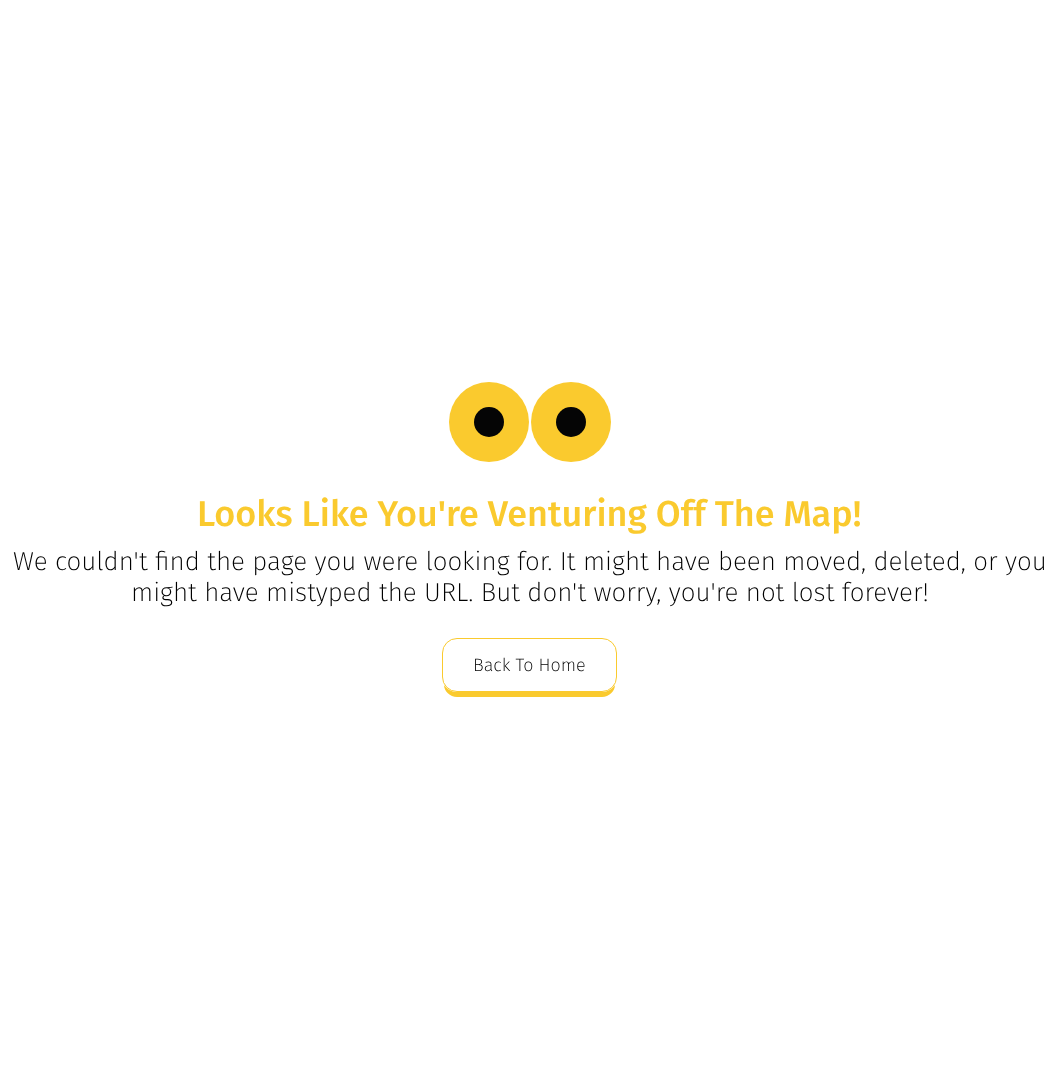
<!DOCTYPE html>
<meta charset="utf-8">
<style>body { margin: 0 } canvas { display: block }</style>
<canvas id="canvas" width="1059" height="1073"></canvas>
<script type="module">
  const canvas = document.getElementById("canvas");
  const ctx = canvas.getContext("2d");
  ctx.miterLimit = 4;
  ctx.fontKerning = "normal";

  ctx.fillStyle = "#ffffff";
  ctx.fillRect(0, 0, 1059, 1073);
  ctx.fillStyle = "#faca2e";
  ctx.beginPath();
  ctx.arc(489, 422, 40, 0, Math.PI * 2);
  ctx.fill();
  ctx.fillStyle = "#050505";
  ctx.beginPath();
  ctx.arc(489, 422, 15, 0, Math.PI * 2);
  ctx.fill();
  ctx.fillStyle = "#faca2e";
  ctx.beginPath();
  ctx.arc(571, 422, 40, 0, Math.PI * 2);
  ctx.fill();
  ctx.fillStyle = "#050505";
  ctx.beginPath();
  ctx.arc(571, 422, 15, 0, Math.PI * 2);
  ctx.fill();
  ctx.font = "500 36px Fira Sans";
  ctx.fillStyle = "#faca2e";
  ctx.fillText("Looks Like You're Venturing Off The Map!", 197, 526);
  ctx.font = "200 26px Fira Sans";
  ctx.fillStyle = "#000000";
  ctx.fillText("We couldn't find the page you were looking for. It might have been moved, deleted, or you", 13, 570);
  ctx.fillText("might have mistyped the URL. But don't worry, you're not lost forever!", 131, 601);
  ctx.fillStyle = "#faca2e";
  ctx.beginPath();
  ctx.moveTo(444, 685);
  ctx.bezierCurveTo(444, 691, 450, 697, 457, 697);
  ctx.lineTo(602, 697);
  ctx.bezierCurveTo(609, 697, 615, 691, 615, 685);
  ctx.bezierCurveTo(612, 689, 608, 692, 602, 692);
  ctx.lineTo(457, 692);
  ctx.bezierCurveTo(451, 692, 447, 689, 444, 685);
  ctx.closePath();
  ctx.fill();
  ctx.beginPath();
  ctx.roundRect(442.5, 638.5, 174, 53, 14.5);
  ctx.strokeStyle = "#faca2e";
  ctx.stroke();
  ctx.font = "200 18px Fira Sans";
  ctx.fillStyle = "#000000";
  ctx.fillText("Back To Home", 473, 671);
</script>
